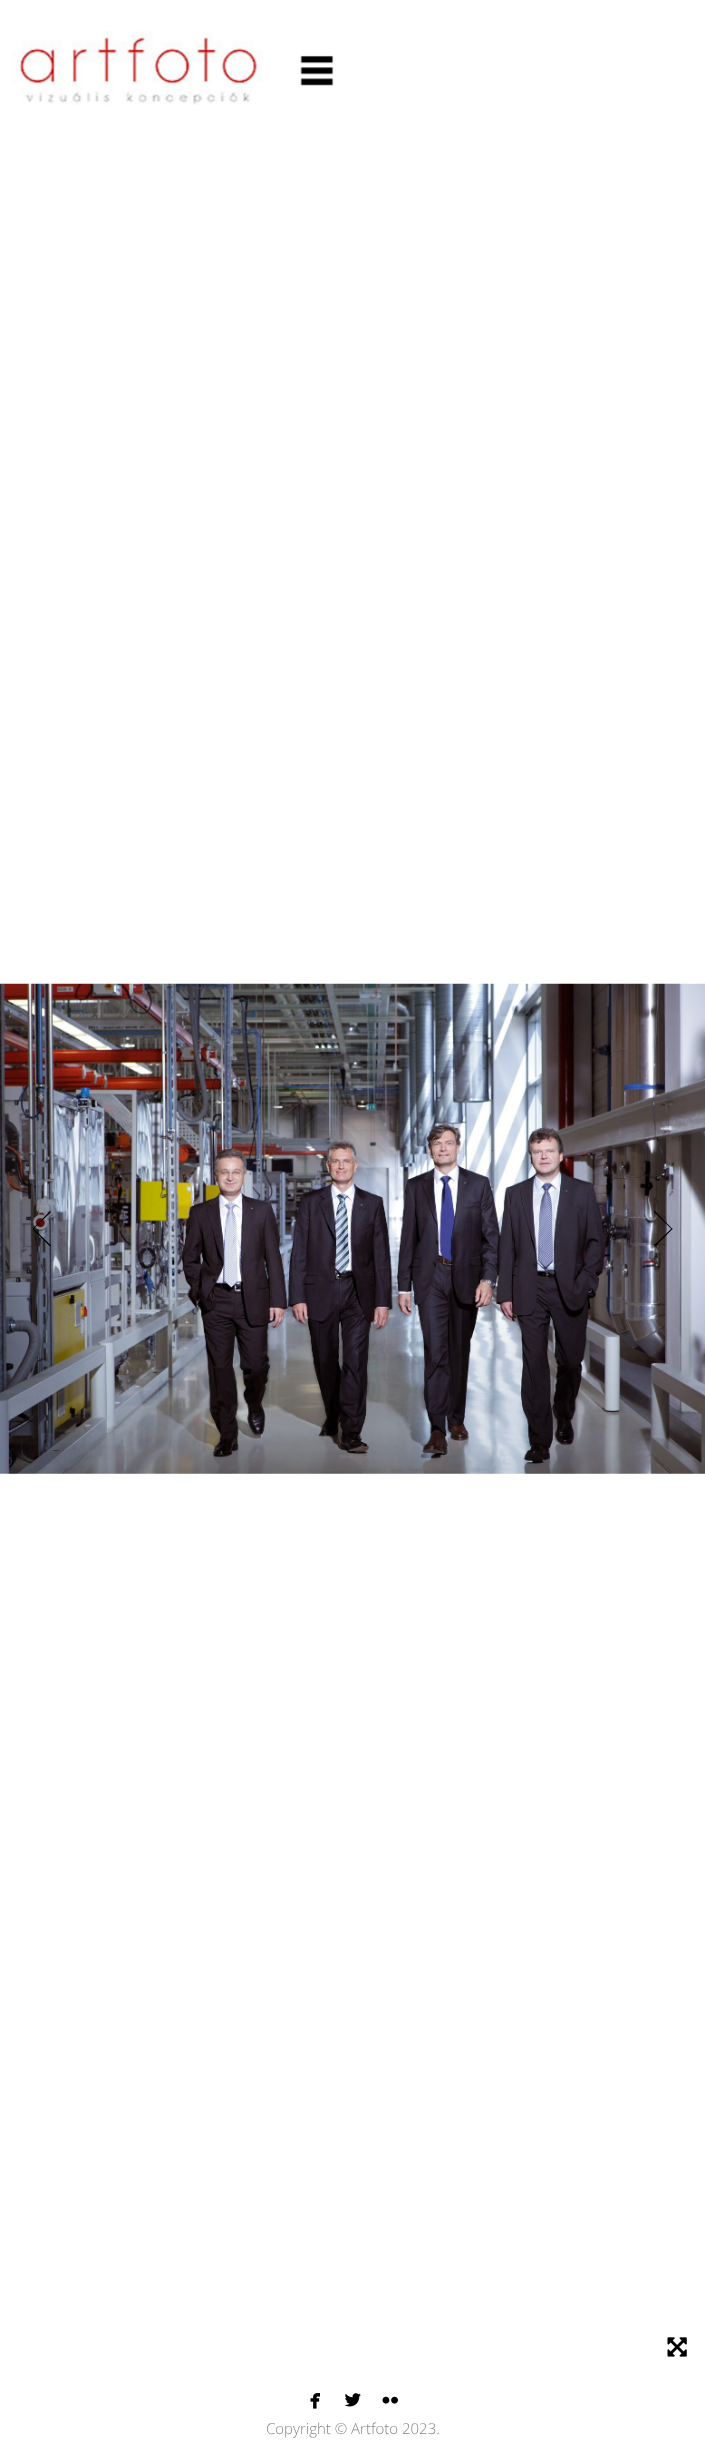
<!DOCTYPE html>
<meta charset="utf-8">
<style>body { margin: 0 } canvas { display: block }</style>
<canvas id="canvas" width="705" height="2457"></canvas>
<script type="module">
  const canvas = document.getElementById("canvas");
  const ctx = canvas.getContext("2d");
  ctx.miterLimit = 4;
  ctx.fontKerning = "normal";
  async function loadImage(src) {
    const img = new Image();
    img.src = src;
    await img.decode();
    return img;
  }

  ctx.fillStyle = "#ffffff";
  ctx.fillRect(0, 0, 705, 2457);
  ctx.drawImage(await loadImage("img1.png"), 12, 31, 251, 74);
  ctx.drawImage(await loadImage("img2.png"), 300, 55, 34, 31);
  ctx.drawImage(await loadImage("img3.png"), 0, 983, 705, 491);
  ctx.fillStyle = "#000000";
  ctx.beginPath();
  ctx.moveTo(33, 1228);
  ctx.lineTo(51, 1245.5);
  ctx.lineTo(50, 1246.5);
  ctx.lineTo(32.5, 1229);
  ctx.closePath();
  ctx.fill();
  ctx.beginPath();
  ctx.moveTo(50, 1211);
  ctx.lineTo(51, 1212);
  ctx.lineTo(33, 1229.5);
  ctx.lineTo(32.5, 1229);
  ctx.closePath();
  ctx.fill();
  ctx.beginPath();
  ctx.moveTo(655, 1211);
  ctx.lineTo(672.5, 1229);
  ctx.lineTo(672, 1229.5);
  ctx.lineTo(654, 1212);
  ctx.closePath();
  ctx.fill();
  ctx.beginPath();
  ctx.moveTo(672, 1228);
  ctx.lineTo(672.5, 1229);
  ctx.lineTo(655, 1246.5);
  ctx.lineTo(654, 1245.5);
  ctx.closePath();
  ctx.fill();
  ctx.drawImage(await loadImage("img4.png"), 667, 2337, 20, 20);
  ctx.drawImage(await loadImage("img5.png"), 310, 2393, 10, 16);
  ctx.drawImage(await loadImage("img6.png"), 344, 2393, 17, 14);
  ctx.drawImage(await loadImage("img7.png"), 382, 2396, 16, 8);
  ctx.font = "300 15px Open Sans";
  ctx.fillStyle = "#868686";
  ctx.fillText("Copyright © Artfoto 2023.", 266, 2434);
</script>
